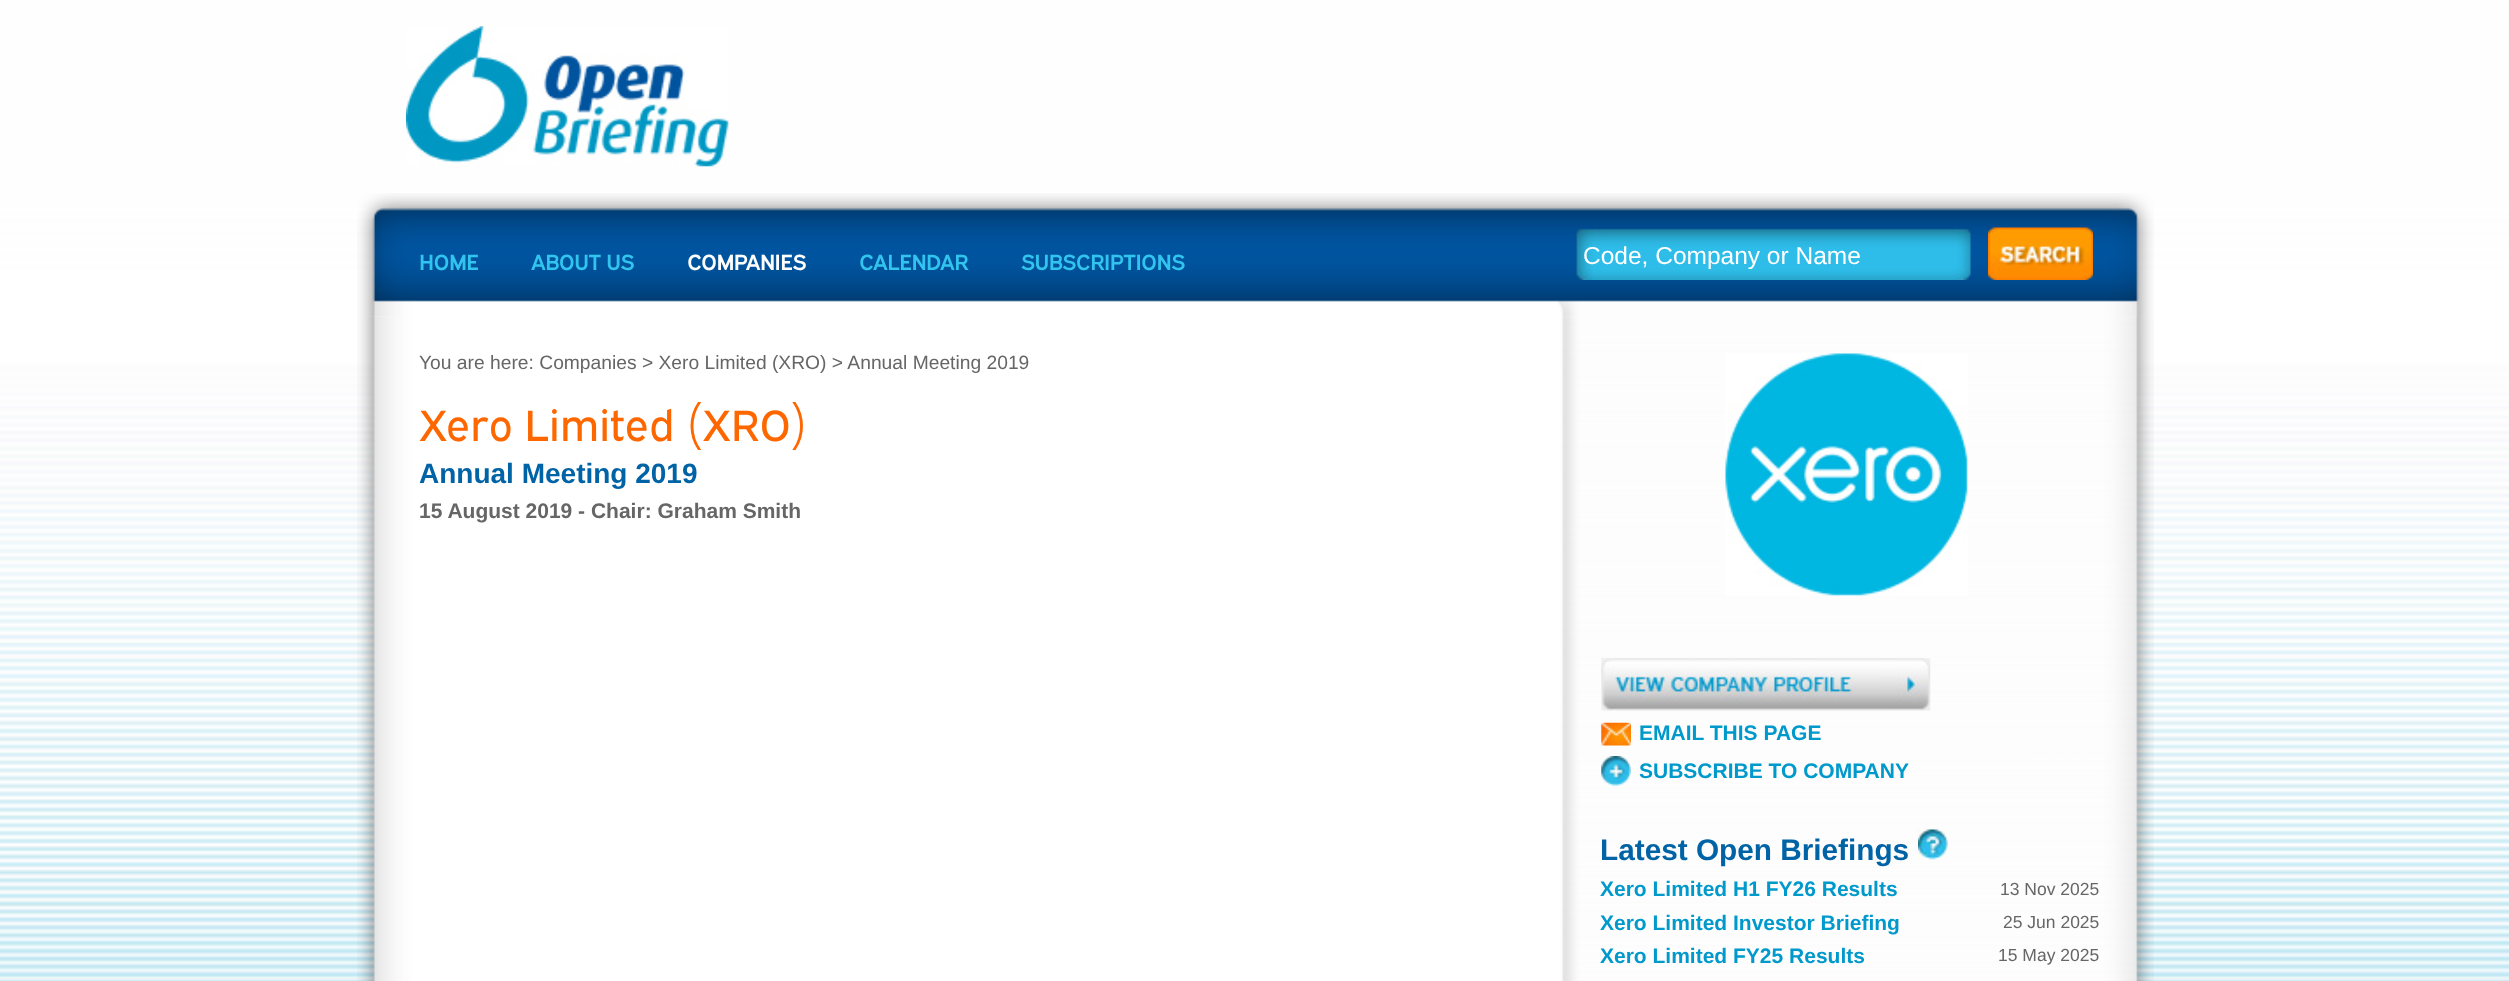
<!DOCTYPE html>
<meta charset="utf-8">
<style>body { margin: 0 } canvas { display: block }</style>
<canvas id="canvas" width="2509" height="981"></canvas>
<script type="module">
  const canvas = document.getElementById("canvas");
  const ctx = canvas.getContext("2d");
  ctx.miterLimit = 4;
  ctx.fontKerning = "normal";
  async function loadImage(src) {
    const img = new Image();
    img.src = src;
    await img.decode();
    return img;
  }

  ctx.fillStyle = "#ffffff";
  ctx.fillRect(0, 0, 2509, 981);
  ctx.drawImage(await loadImage("img1.png"), 0, 0, 2509, 981);
  ctx.drawImage(await loadImage("img2.png"), 406, 26, 323, 141);
  ctx.drawImage(await loadImage("img3.png"), 357, 193, 1797, 124);
  ctx.font = "bold 21.25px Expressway";
  ctx.fillStyle = "#31c4ee";
  ctx.fillText("HOME", 419, 270);
  ctx.fillText("ABOUT US", 531, 270);
  ctx.fillStyle = "#ffffff";
  ctx.fillText("COMPANIES", 687, 270);
  ctx.fillStyle = "#31c4ee";
  ctx.fillText("CALENDAR", 859, 270);
  ctx.fillText("SUBSCRIPTIONS", 1021, 270);
  ctx.drawImage(await loadImage("img4.png"), 1575, 227, 396, 53);
  ctx.font = "24.5px Liberation Sans";
  ctx.fillStyle = "#ffffff";
  ctx.fillText("Code, Company or Name", 1583, 264);
  ctx.drawImage(await loadImage("img5.png"), 1988, 227, 105, 53);
  ctx.drawImage(await loadImage("img6.png"), 357, 316, 1797, 665);
  ctx.font = "19.25px Liberation Sans";
  ctx.fillStyle = "#666666";
  ctx.fillText("You are here: Companies > Xero Limited (XRO) > Annual Meeting 2019", 419, 369);
  ctx.font = "43.75px Expressway";
  ctx.fillStyle = "#fe6700";
  ctx.fillText("Xero Limited (XRO)", 419, 441);
  ctx.font = "bold 28px Liberation Sans";
  ctx.fillStyle = "#0063a6";
  ctx.fillText("Annual Meeting 2019", 419, 483);
  ctx.font = "bold 21px Liberation Sans";
  ctx.fillStyle = "#666666";
  ctx.fillText("15 August 2019 - Chair: Graham Smith", 419, 518);
  ctx.drawImage(await loadImage("img7.png"), 1725, 353, 243, 243);
  ctx.drawImage(await loadImage("img8.png"), 1601, 658, 330, 53);
  ctx.drawImage(await loadImage("img9.png"), 1601, 722, 30, 24);
  ctx.fillStyle = "#0099cc";
  ctx.fillText("EMAIL THIS PAGE", 1639, 740);
  ctx.drawImage(await loadImage("img10.png"), 1601, 756, 30, 30);
  ctx.fillText("SUBSCRIBE TO COMPANY", 1639, 778);
  ctx.font = "bold 29.75px Liberation Sans";
  ctx.fillStyle = "#0063a6";
  ctx.fillText("Latest Open Briefings", 1600, 860);
  ctx.drawImage(await loadImage("img11.png"), 1918, 829, 30, 31);
  ctx.font = "bold 21px Liberation Sans";
  ctx.fillStyle = "#0099cc";
  ctx.fillText("Xero Limited H1 FY26 Results", 1600, 896);
  ctx.font = "17.5px Liberation Sans";
  ctx.fillStyle = "#666666";
  ctx.fillText("13 Nov 2025", 2000, 895);
  ctx.font = "bold 21px Liberation Sans";
  ctx.fillStyle = "#0099cc";
  ctx.fillText("Xero Limited Investor Briefing", 1600, 930);
  ctx.font = "17.5px Liberation Sans";
  ctx.fillStyle = "#666666";
  ctx.fillText("25 Jun 2025", 2003, 928);
  ctx.font = "bold 21px Liberation Sans";
  ctx.fillStyle = "#0099cc";
  ctx.fillText("Xero Limited FY25 Results", 1600, 963);
  ctx.font = "17.5px Liberation Sans";
  ctx.fillStyle = "#666666";
  ctx.fillText("15 May 2025", 1998, 961);
</script>
